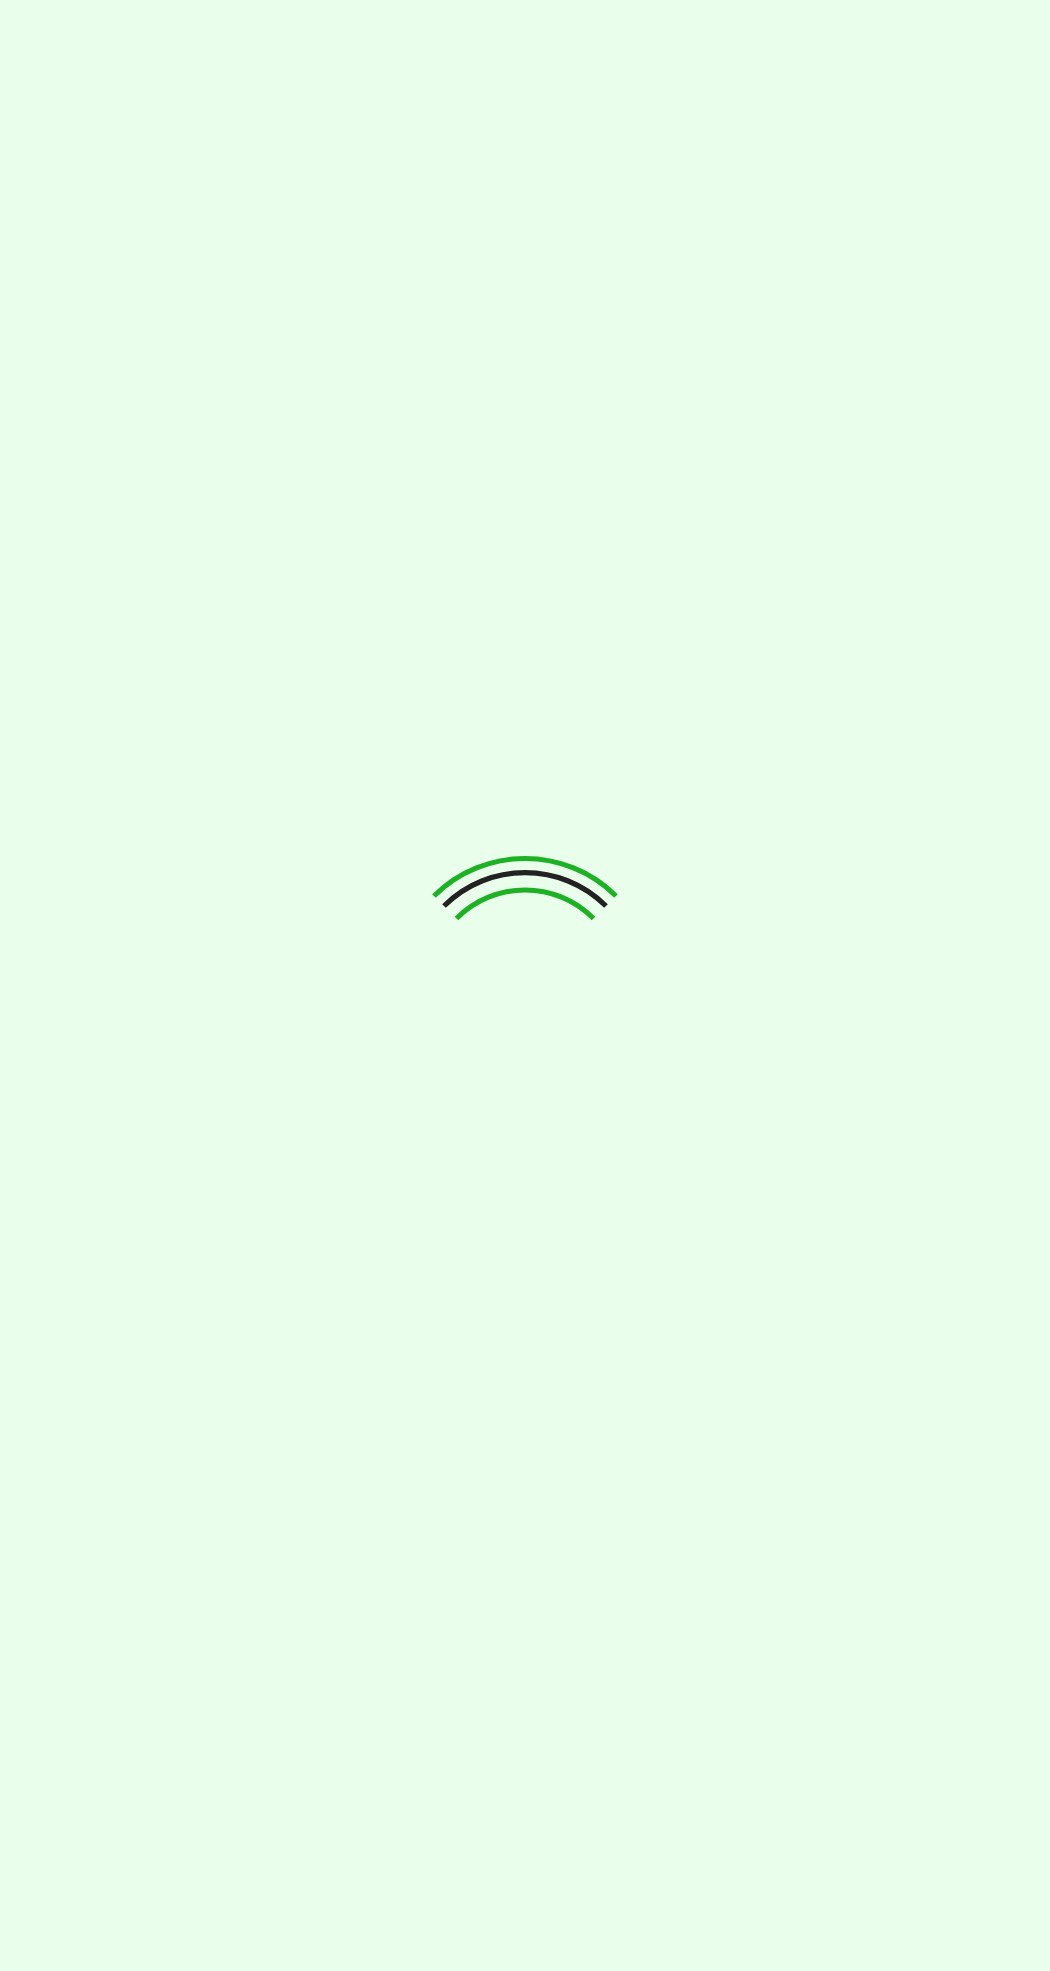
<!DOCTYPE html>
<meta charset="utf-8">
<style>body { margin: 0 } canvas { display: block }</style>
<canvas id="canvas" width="1050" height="1971"></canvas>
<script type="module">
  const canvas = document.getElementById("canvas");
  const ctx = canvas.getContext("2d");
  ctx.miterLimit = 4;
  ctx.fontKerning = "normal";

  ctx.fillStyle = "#eaffeb";
  ctx.fillRect(0, 0, 1050, 1971);
  ctx.beginPath();
  ctx.moveTo(434, 896);
  ctx.bezierCurveTo(484, 846, 566, 846, 616, 896);
  ctx.strokeStyle = "#1fb125";
  ctx.lineWidth = 5.2;
  ctx.stroke();
  ctx.beginPath();
  ctx.moveTo(444, 906);
  ctx.bezierCurveTo(488.5, 861.5, 561.5, 861.5, 606, 906);
  ctx.strokeStyle = "#222222";
  ctx.stroke();
  ctx.beginPath();
  ctx.moveTo(456.5, 918.5);
  ctx.bezierCurveTo(494, 880.5, 556, 880.5, 593.5, 918.5);
  ctx.strokeStyle = "#1fb125";
  ctx.stroke();
</script>
